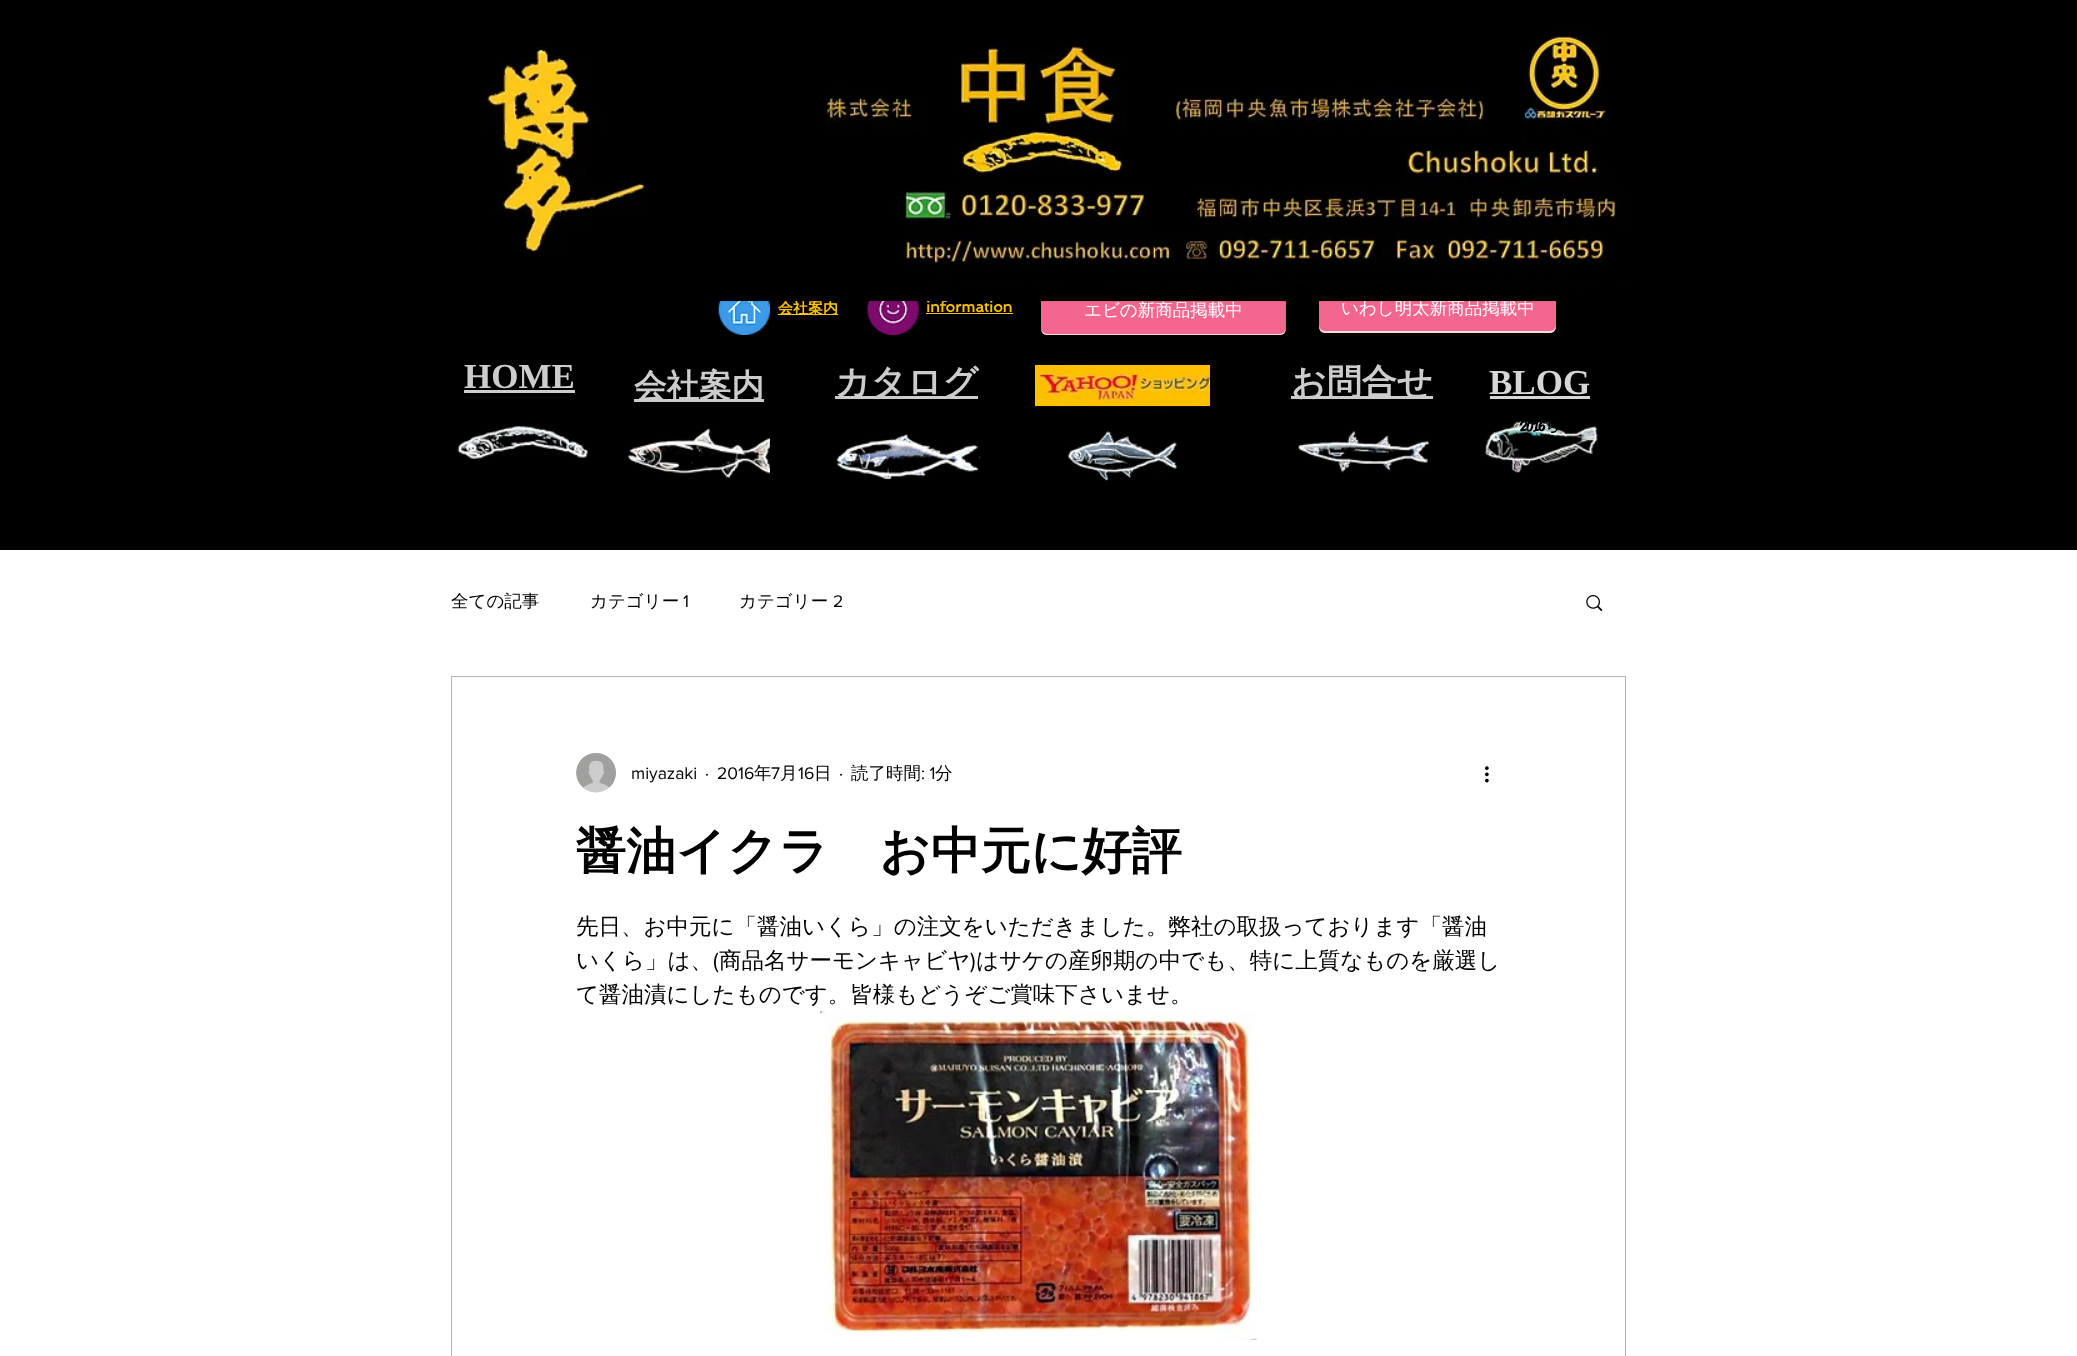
<!DOCTYPE html>
<meta charset="utf-8">
<style>body { margin: 0 } canvas { display: block }</style>
<canvas id="canvas" width="2077" height="1356"></canvas>
<script type="module">
  const canvas = document.getElementById("canvas");
  const ctx = canvas.getContext("2d");
  ctx.miterLimit = 4;
  ctx.fontKerning = "normal";
  async function loadImage(src) {
    const img = new Image();
    img.src = src;
    await img.decode();
    return img;
  }

  ctx.fillStyle = "#ffffff";
  ctx.fillRect(0, 0, 2077, 1356);
  ctx.fillStyle = "#000000";
  ctx.fillRect(0, 0, 2077, 550);
  ctx.drawImage(await loadImage("img1.png"), 487, 20, 1154, 260);
  ctx.drawImage(await loadImage("img3.png"), 718, 301, 52, 34);
  ctx.fillStyle = "#ffc300";
  ctx.fillRect(778, 314, 60, 1);
  ctx.font = "bold 15px WenQuanYi Zen Hei";
  ctx.fillText("会社案内", 778, 313);
  ctx.drawImage(await loadImage("img4.png"), 867, 301, 52, 34);
  ctx.font = "bold 15px Spinnaker";
  ctx.fillText("information", 926, 312);
  ctx.fillStyle = "#f2668f";
  ctx.beginPath();
  ctx.roundRect(1041, 285, 245, 50, 6);
  ctx.fill();
  ctx.font = "500 17.5px WenQuanYi Zen Hei";
  ctx.fillStyle = "#ffffff";
  ctx.fillText("エビの新商品掲載中", 1084, 316);
  ctx.fillStyle = "#f2668f";
  ctx.beginPath();
  ctx.roundRect(1319, 284, 237, 49, 6);
  ctx.fill();
  ctx.fillStyle = "#ffffff";
  ctx.fillText("いわし明太新商品掲載中", 1341, 314);
  ctx.drawImage(await loadImage("img2.png"), 487, 280, 1154, 22);
  ctx.fillStyle = "#ffc300";
  ctx.fillRect(926, 313, 87, 1);
  ctx.fillStyle = "rgba(255, 255, 255, 0.75)";
  ctx.beginPath();
  ctx.moveTo(1041, 328);
  ctx.bezierCurveTo(1041, 332, 1043, 335, 1047, 335);
  ctx.lineTo(1281, 335);
  ctx.bezierCurveTo(1285, 334, 1286, 331, 1286, 328);
  ctx.bezierCurveTo(1286, 331, 1283, 334, 1280, 334);
  ctx.lineTo(1048, 334);
  ctx.bezierCurveTo(1044, 334, 1041, 331, 1041, 328);
  ctx.closePath();
  ctx.fill();
  ctx.beginPath();
  ctx.moveTo(1319, 325);
  ctx.lineTo(1319, 327);
  ctx.bezierCurveTo(1319, 330, 1322, 333, 1325, 333);
  ctx.lineTo(1550, 333);
  ctx.bezierCurveTo(1553, 333, 1556, 330, 1556, 327);
  ctx.lineTo(1556, 325);
  ctx.bezierCurveTo(1556, 328, 1553, 331, 1550, 331);
  ctx.lineTo(1325, 331);
  ctx.bezierCurveTo(1322, 331, 1319, 328, 1319, 325);
  ctx.closePath();
  ctx.fill();
  ctx.font = "bold 35px Liberation Serif";
  ctx.fillStyle = "#cccccc";
  ctx.fillText("HOME", 464, 388);
  ctx.fillRect(464, 390, 111, 3);
  ctx.fillRect(634, 399, 130, 3);
  ctx.font = "bold 32.5px WenQuanYi Zen Hei";
  ctx.fillText("会社案内", 634, 397);
  ctx.fillRect(835, 396, 143, 3);
  ctx.font = "bold 35px WenQuanYi Zen Hei";
  ctx.fillText("カタログ", 835, 394);
  ctx.drawImage(await loadImage("img5.png"), 1035, 365, 175, 42);
  ctx.fillRect(1291, 396, 142, 3);
  ctx.fillText("お問合せ", 1291, 394);
  ctx.font = "bold 35px Liberation Serif";
  ctx.fillStyle = "#d6d6d6";
  ctx.fillText("BLOG", 1489, 394);
  ctx.fillRect(1490, 396, 100, 3);
  ctx.drawImage(await loadImage("img6.png"), 1485, 421, 113, 52);
  ctx.drawImage(await loadImage("img7.png"), 457, 425, 131, 34);
  ctx.drawImage(await loadImage("img8.png"), 627, 428, 143, 50);
  ctx.drawImage(await loadImage("img9.png"), 836, 434, 145, 46);
  ctx.drawImage(await loadImage("img10.png"), 1067, 431, 110, 50);
  ctx.drawImage(await loadImage("img11.png"), 1298, 431, 131, 42);
  ctx.font = "bold 14px 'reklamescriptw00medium'";
  ctx.fillStyle = "#000000";
  ctx.fillText("2016", 1520, 431);
  ctx.font = "bold 14px WenQuanYi Zen Hei";
  ctx.fillText("ち", 1545, 431);
  ctx.font = "500 17.5px WenQuanYi Zen Hei";
  ctx.fillText("全ての記事", 451, 607);
  ctx.fillText("カテゴリー", 590, 607);
  ctx.font = "17.5px 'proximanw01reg'";
  ctx.fillText("1", 683, 607);
  ctx.font = "500 17.5px WenQuanYi Zen Hei";
  ctx.fillText("カテゴリー", 739, 607);
  ctx.font = "17.5px 'proximanw01reg'";
  ctx.fillText("2", 833, 607);
  ctx.drawImage(await loadImage("img12.png"), 1586, 595, 17, 17);
  ctx.strokeStyle = "#b3b3b3";
  ctx.strokeRect(451.5, 676.5, 1174, 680);
  ctx.drawImage(await loadImage("img13.png"), 576, 753, 40, 40);
  ctx.fillText("miyazaki", 631, 779);
  ctx.fillText("·", 705, 779);
  ctx.fillText("2016", 717, 779);
  ctx.font = "500 17.5px WenQuanYi Zen Hei";
  ctx.fillText("年", 754, 779);
  ctx.font = "17.5px 'proximanw01reg'";
  ctx.fillText("7", 771, 779);
  ctx.font = "500 17.5px WenQuanYi Zen Hei";
  ctx.fillText("月", 780, 779);
  ctx.font = "17.5px 'proximanw01reg'";
  ctx.fillText("16", 798, 779);
  ctx.font = "500 17.5px WenQuanYi Zen Hei";
  ctx.fillText("日", 814, 779);
  ctx.font = "17.5px 'proximanw01reg'";
  ctx.fillText("·", 839, 779);
  ctx.font = "500 17.5px WenQuanYi Zen Hei";
  ctx.fillText("読了時間", 851, 779);
  ctx.font = "17.5px 'proximanw01reg'";
  ctx.fillText(": 1", 921, 779);
  ctx.font = "500 17.5px WenQuanYi Zen Hei";
  ctx.fillText("分", 935, 779);
  ctx.drawImage(await loadImage("img14.png"), 1485, 766, 4, 17);
  ctx.font = "bold 50px WenQuanYi Zen Hei";
  ctx.fillText("醤油イクラ　お中元に好評", 576, 868);
  ctx.font = "500 22.5px WenQuanYi Zen Hei";
  ctx.fillText("先日、お中元に「醤油いくら」の注文をいただきました。弊社の取扱っております「醤油", 576, 934);
  ctx.fillText("いくら」は、", 576, 968);
  ctx.font = "22.5px 'proximanw01reg'";
  ctx.fillText("(", 713, 968);
  ctx.font = "500 22.5px WenQuanYi Zen Hei";
  ctx.fillText("商品名サーモンキャビヤ", 719, 968);
  ctx.font = "22.5px 'proximanw01reg'";
  ctx.fillText(")", 970, 968);
  ctx.font = "500 22.5px WenQuanYi Zen Hei";
  ctx.fillText("はサケの産卵期の中でも、特に上質なものを厳選し", 976, 968);
  ctx.fillText("て醤油漬にしたものです。皆様もどうぞご賞味下さいませ。", 576, 1002);
  ctx.drawImage(await loadImage("img15.png"), 820, 1011, 438, 329);
</script>
